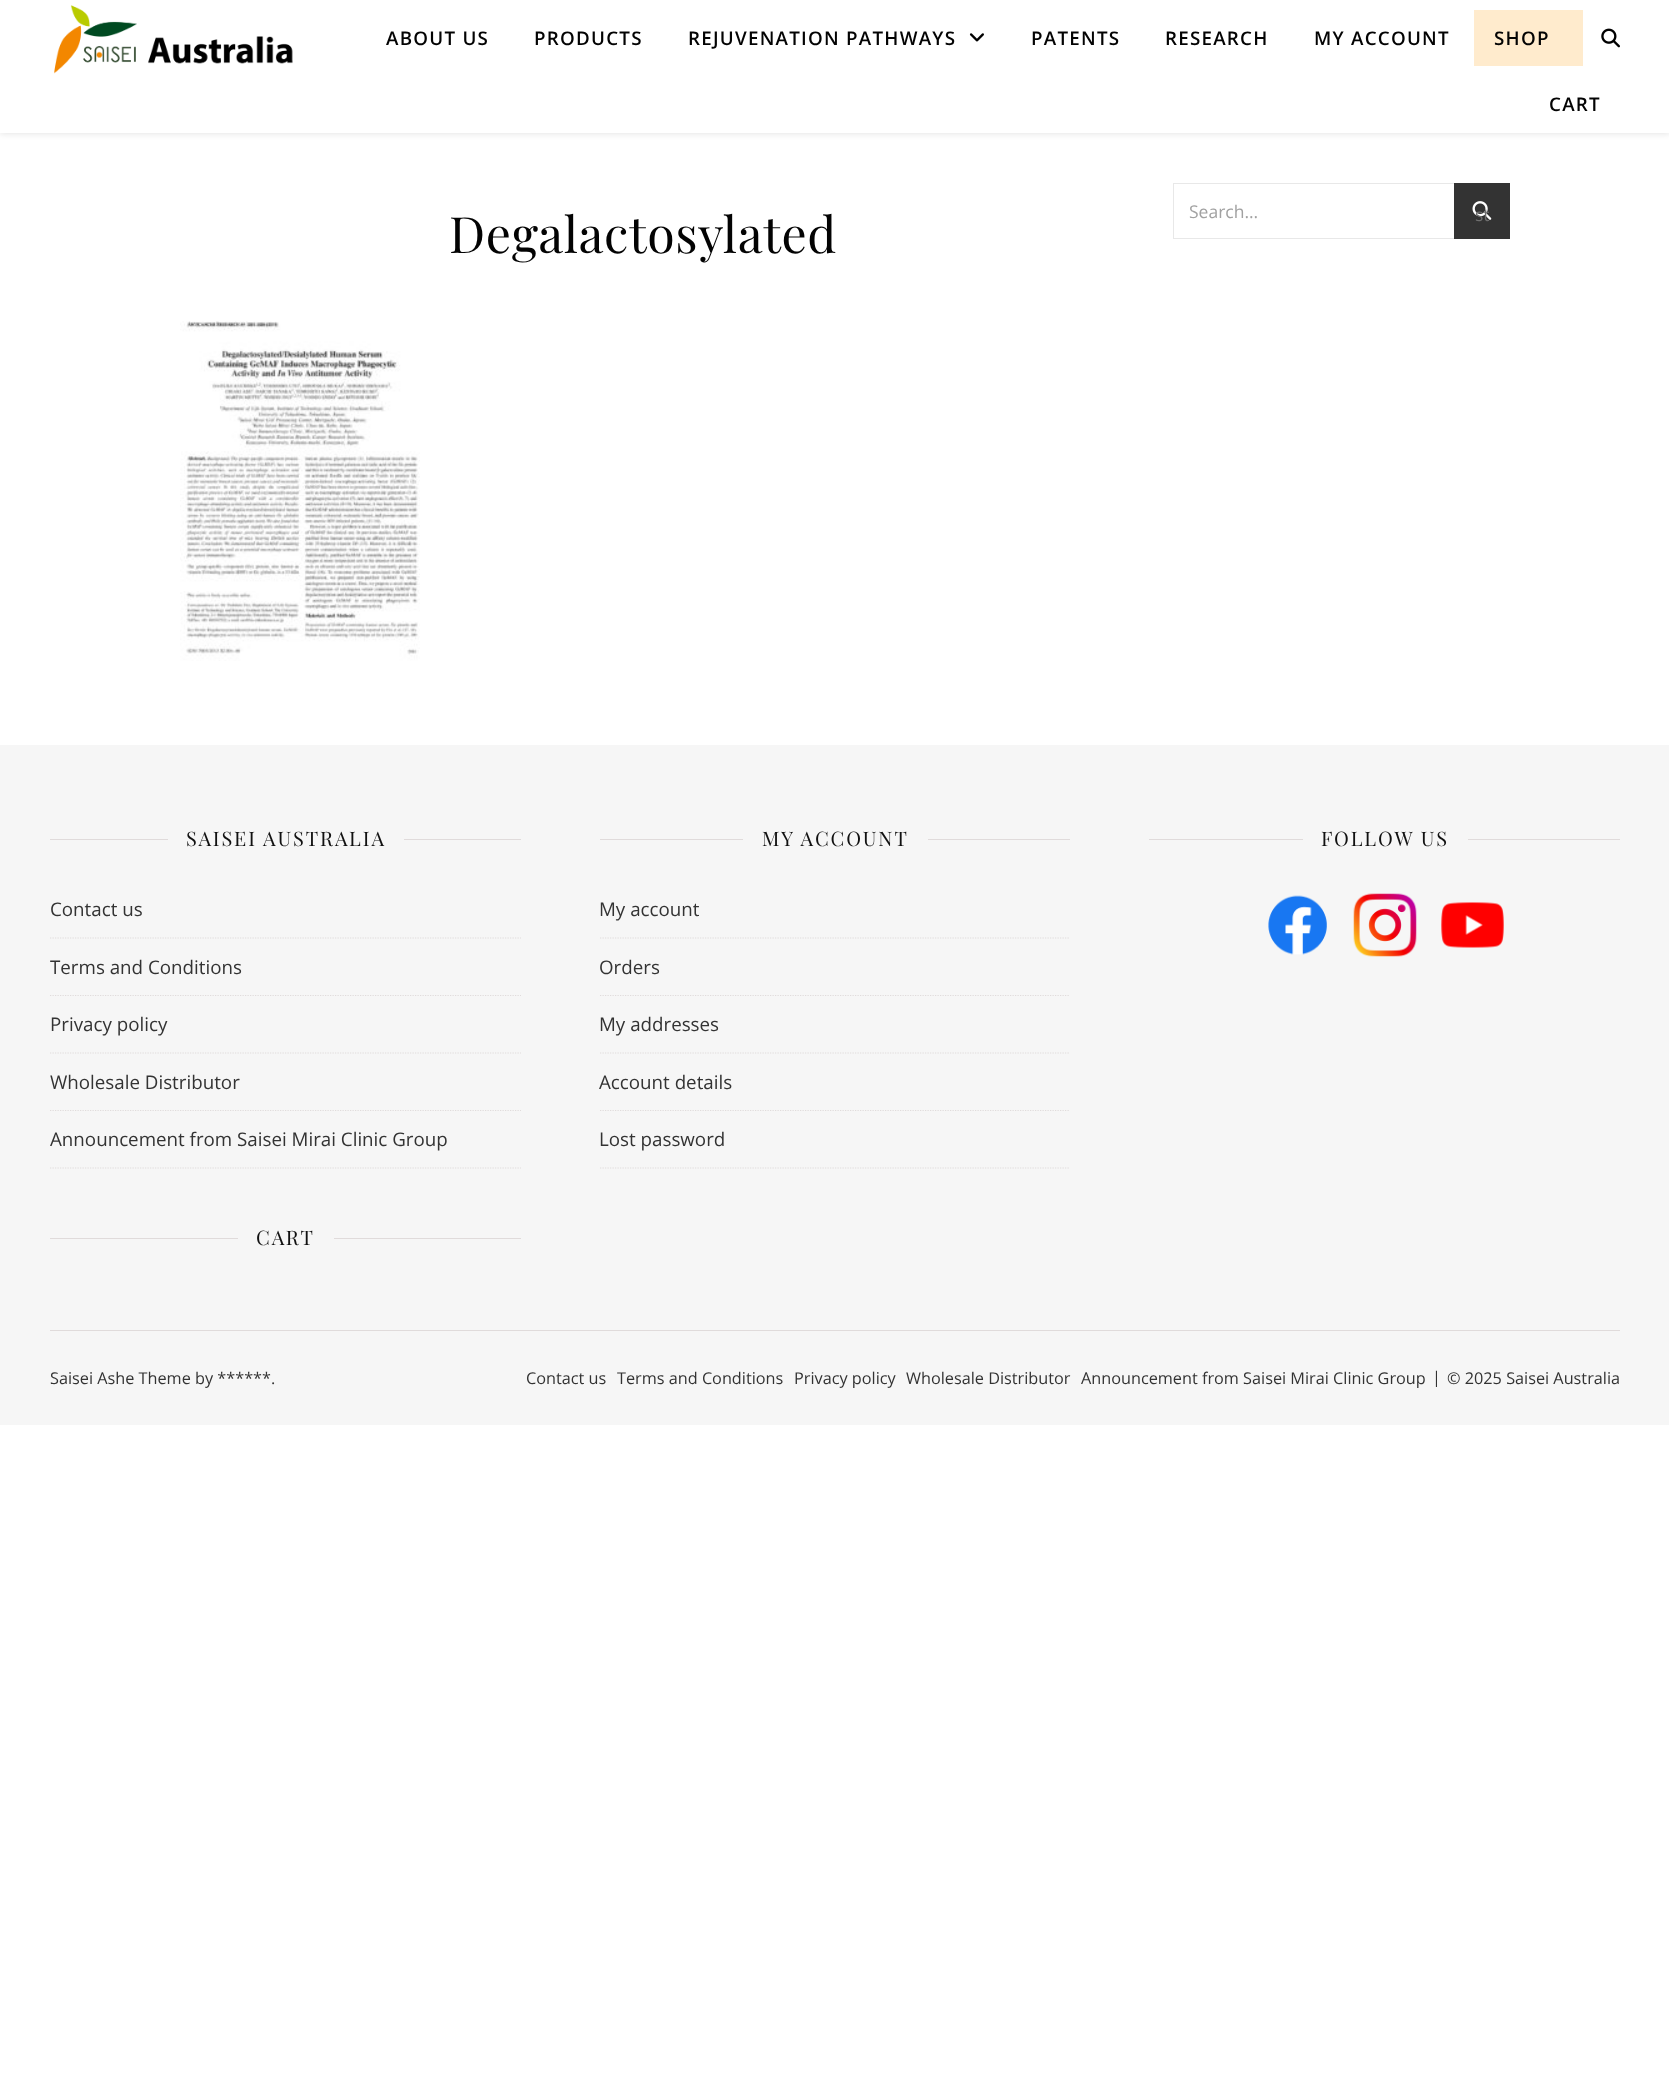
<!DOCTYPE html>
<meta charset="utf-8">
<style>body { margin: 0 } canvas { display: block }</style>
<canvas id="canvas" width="1669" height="2092"></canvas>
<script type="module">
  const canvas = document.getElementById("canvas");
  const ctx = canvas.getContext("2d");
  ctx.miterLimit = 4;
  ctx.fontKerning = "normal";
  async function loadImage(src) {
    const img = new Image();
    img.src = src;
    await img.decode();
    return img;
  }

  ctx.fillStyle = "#ffffff";
  ctx.fillRect(0, 0, 1669, 2092);
  ctx.fillStyle = "rgba(0, 0, 0, 0.1)";
  ctx.filter = "blur(3px)";
  ctx.beginPath();
  ctx.rect(0, 1, 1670, 133);
  ctx.fill();
  ctx.filter = "none";
  ctx.fillStyle = "#ffffff";
  ctx.fillRect(0, 0, 1669, 133);
  ctx.drawImage(await loadImage("img1.png"), 54, 5, 239, 69);
  ctx.letterSpacing = "1.25px";
  ctx.font = "600 18.75px Open Sans";
  ctx.fillStyle = "#030303";
  ctx.fillText("ABOUT US", 386, 45);
  ctx.fillText("PRODUCTS", 534, 45);
  ctx.fillText("REJUVENATION PATHWAYS", 688, 45);
  ctx.drawImage(await loadImage("img2.png"), 969, 33, 15, 9);
  ctx.fillText("PATENTS", 1031, 45);
  ctx.fillText("RESEARCH", 1165, 45);
  ctx.fillText("MY ACCOUNT", 1314, 45);
  ctx.fillStyle = "#ffebcd";
  ctx.fillRect(1474, 10, 109, 56);
  ctx.fillStyle = "#030303";
  ctx.fillText("SHOP", 1494, 45);
  ctx.fillText("CART", 1549, 111);
  ctx.drawImage(await loadImage("img3.png"), 1601, 28, 19, 20);
  ctx.letterSpacing = "0.6px";
  ctx.font = "50px Playfair Display";
  ctx.fillText("Degalactosylated", 449, 253);
  ctx.drawImage(await loadImage("img4.png"), 180, 321, 240, 340);
  ctx.strokeStyle = "#e8e8e8";
  ctx.strokeRect(1173.5, 183.5, 336, 55);
  ctx.letterSpacing = "0px";
  ctx.font = "17.5px Open Sans";
  ctx.fillStyle = "#a1a1a1";
  ctx.fillText("Search...", 1189, 218);
  ctx.fillStyle = "#333333";
  ctx.fillRect(1454, 183, 56, 56);
  ctx.drawImage(await loadImage("img5.png"), 1472, 201, 20, 19);
  ctx.fillStyle = "#6f6f6f";
  ctx.fillText("st", 1475, 221);
  ctx.fillStyle = "#f6f6f6";
  ctx.fillRect(0, 745, 1669, 680);
  ctx.fillStyle = "#e0dbdb";
  ctx.fillRect(50, 1330, 1570, 1);
  ctx.fillRect(50, 839, 118, 1);
  ctx.letterSpacing = "1.9px";
  ctx.font = "20px Playfair Display";
  ctx.fillStyle = "#111111";
  ctx.fillText("SAISEI AUSTRALIA", 186, 846);
  ctx.fillStyle = "#e0dbdb";
  ctx.fillRect(404, 839, 117, 1);
  ctx.beginPath();
  ctx.moveTo(50, 938);
  ctx.lineTo(521, 938);
  ctx.strokeStyle = "#e0dbdb";
  ctx.lineWidth = 1.2;
  ctx.setLineDash([1.25, 1.25]);
  ctx.stroke();
  ctx.letterSpacing = "0px";
  ctx.font = "18.75px Open Sans";
  ctx.fillStyle = "#333333";
  ctx.fillText("Contact us", 50, 916);
  ctx.beginPath();
  ctx.moveTo(50, 995.5);
  ctx.lineTo(521, 995.5);
  ctx.stroke();
  ctx.fillText("Terms and Conditions", 50, 974);
  ctx.beginPath();
  ctx.moveTo(50, 1053);
  ctx.lineTo(521, 1053);
  ctx.stroke();
  ctx.fillText("Privacy policy", 50, 1031);
  ctx.beginPath();
  ctx.moveTo(50, 1110.5);
  ctx.lineTo(521, 1110.5);
  ctx.stroke();
  ctx.fillText("Wholesale Distributor", 50, 1089);
  ctx.beginPath();
  ctx.moveTo(50, 1168);
  ctx.lineTo(521, 1168);
  ctx.stroke();
  ctx.fillText("Announcement from Saisei Mirai Clinic Group", 50, 1146);
  ctx.fillStyle = "#e0dbdb";
  ctx.fillRect(600, 839, 143, 1);
  ctx.letterSpacing = "1.9px";
  ctx.font = "20px Playfair Display";
  ctx.fillStyle = "#111111";
  ctx.fillText("MY ACCOUNT", 762, 846);
  ctx.fillStyle = "#e0dbdb";
  ctx.fillRect(928, 839, 142, 1);
  ctx.beginPath();
  ctx.moveTo(600, 938);
  ctx.lineTo(1070, 938);
  ctx.stroke();
  ctx.letterSpacing = "0px";
  ctx.font = "18.75px Open Sans";
  ctx.fillStyle = "#333333";
  ctx.fillText("My account", 599, 916);
  ctx.beginPath();
  ctx.moveTo(600, 995.5);
  ctx.lineTo(1070, 995.5);
  ctx.stroke();
  ctx.fillText("Orders", 599, 974);
  ctx.beginPath();
  ctx.moveTo(600, 1053);
  ctx.lineTo(1070, 1053);
  ctx.stroke();
  ctx.fillText("My addresses", 599, 1031);
  ctx.beginPath();
  ctx.moveTo(600, 1110.5);
  ctx.lineTo(1070, 1110.5);
  ctx.stroke();
  ctx.fillText("Account details", 599, 1089);
  ctx.beginPath();
  ctx.moveTo(600, 1168);
  ctx.lineTo(1070, 1168);
  ctx.stroke();
  ctx.fillText("Lost password", 599, 1146);
  ctx.fillStyle = "#e0dbdb";
  ctx.fillRect(1149, 839, 154, 1);
  ctx.letterSpacing = "1.9px";
  ctx.font = "20px Playfair Display";
  ctx.fillStyle = "#111111";
  ctx.fillText("FOLLOW US", 1321, 846);
  ctx.fillStyle = "#e0dbdb";
  ctx.fillRect(1468, 839, 152, 1);
  ctx.drawImage(await loadImage("img6.png"), 1268, 895, 59, 60);
  ctx.drawImage(await loadImage("img7.png"), 1353, 893, 64, 64);
  ctx.drawImage(await loadImage("img8.png"), 1441, 902, 63, 46);
  ctx.fillRect(50, 1238, 188, 1);
  ctx.fillStyle = "#111111";
  ctx.fillText("CART", 256, 1245);
  ctx.fillStyle = "#e0dbdb";
  ctx.fillRect(334, 1238, 187, 1);
  ctx.letterSpacing = "0px";
  ctx.font = "16.25px Open Sans";
  ctx.fillStyle = "#333333";
  ctx.fillText("Saisei Ashe Theme by ******.", 50, 1384);
  ctx.fillText("Contact us", 526, 1384);
  ctx.fillText("Terms and Conditions", 617, 1384);
  ctx.fillText("Privacy policy", 794, 1384);
  ctx.fillText("Wholesale Distributor", 906, 1384);
  ctx.fillText("Announcement from Saisei Mirai Clinic Group", 1081, 1384);
  ctx.fillText("|", 1432, 1383);
  ctx.fillText("© 2025 Saisei Australia", 1447, 1384);
</script>
